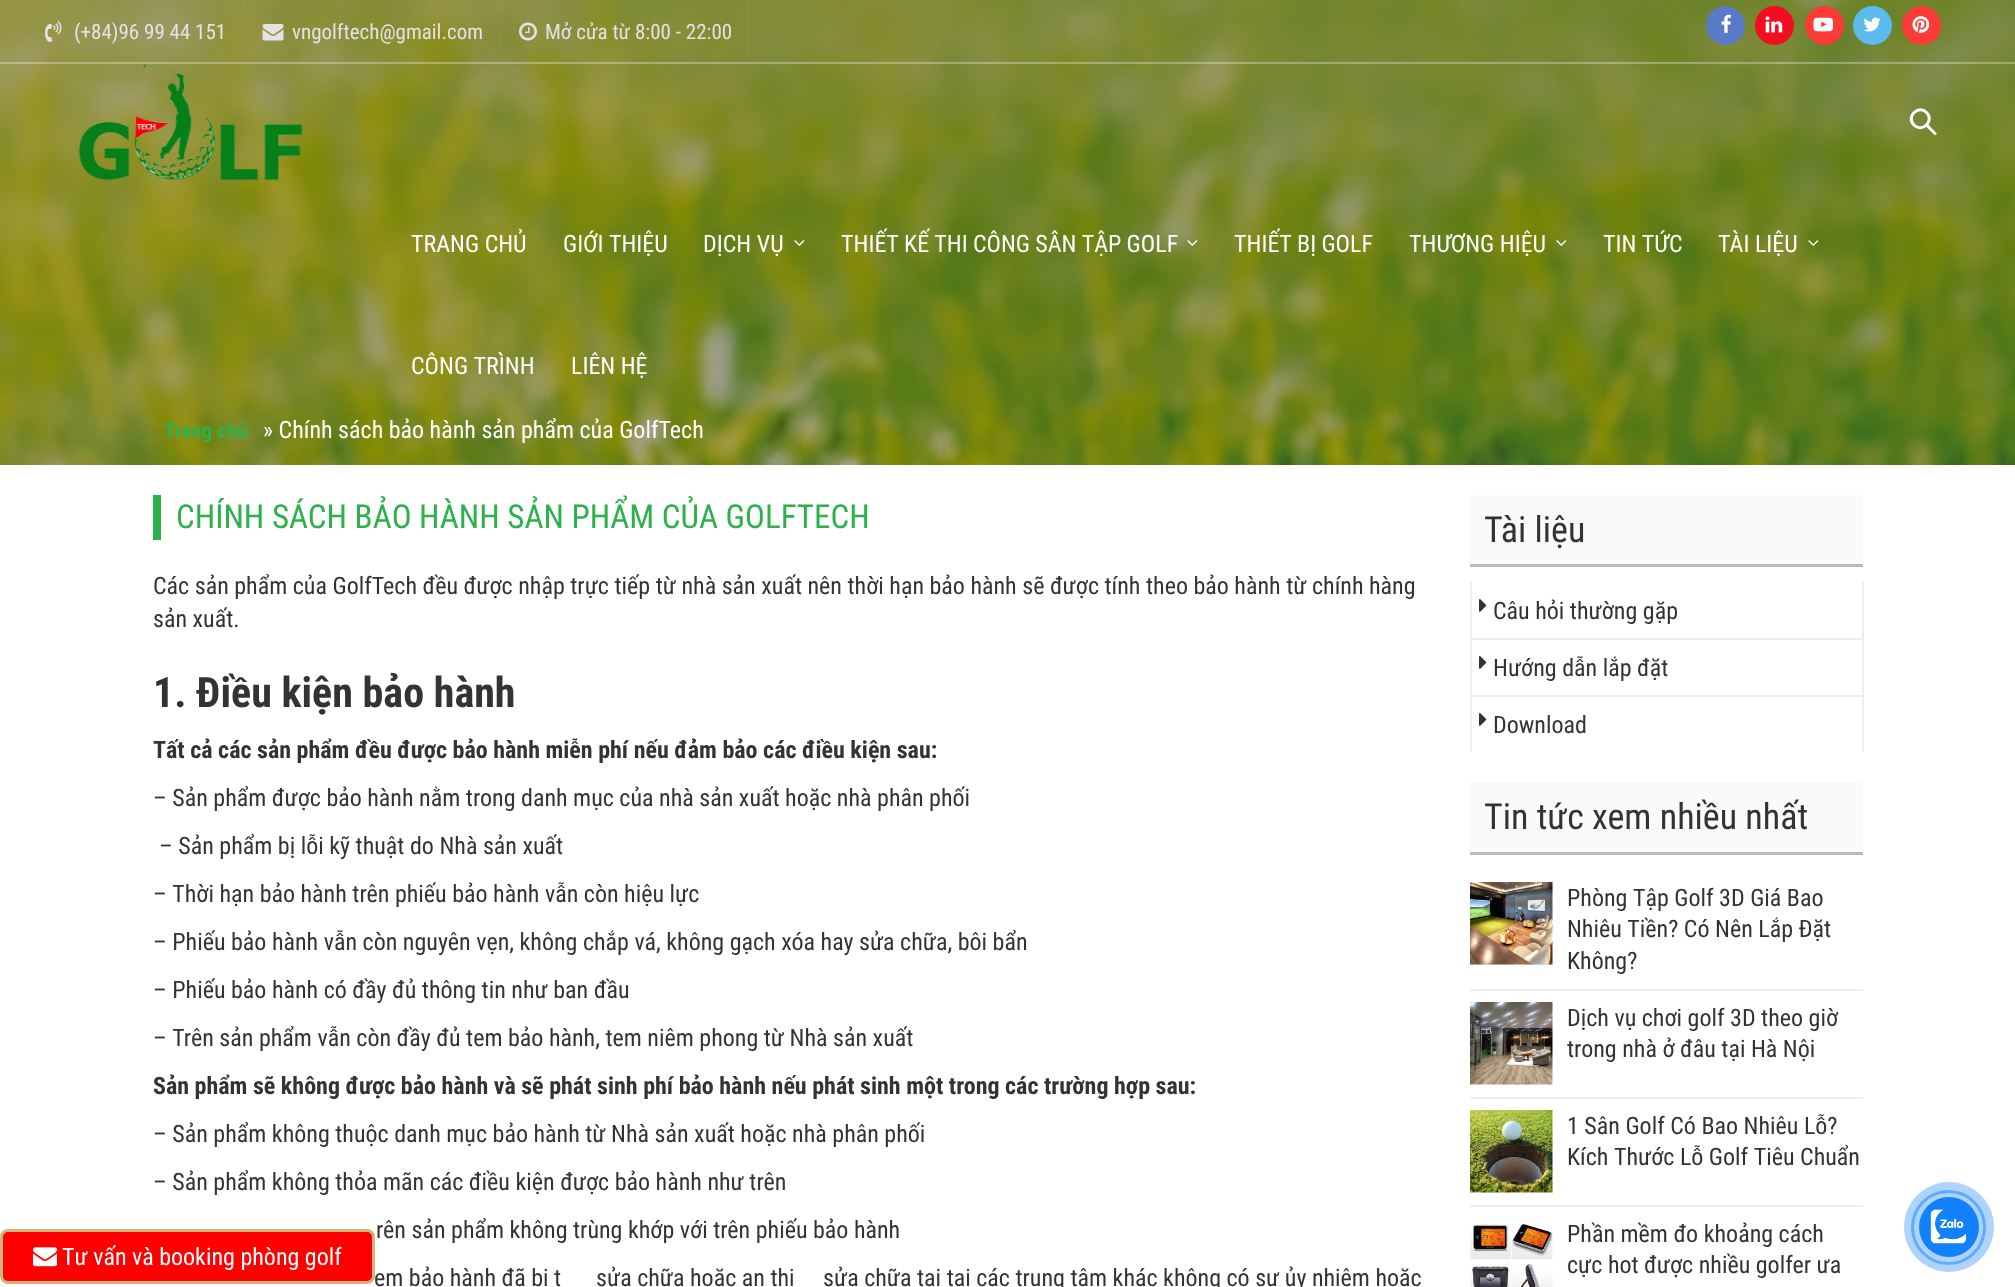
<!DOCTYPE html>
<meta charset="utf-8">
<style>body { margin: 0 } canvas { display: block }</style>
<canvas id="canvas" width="2015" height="1287"></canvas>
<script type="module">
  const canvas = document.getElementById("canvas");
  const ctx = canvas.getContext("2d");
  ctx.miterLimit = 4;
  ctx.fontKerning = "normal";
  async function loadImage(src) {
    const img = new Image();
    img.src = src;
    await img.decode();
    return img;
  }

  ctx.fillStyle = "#ffffff";
  ctx.fillRect(0, 0, 2015, 1287);
  ctx.drawImage(await loadImage("img14.png"), 0, 0, 2015, 465);
  ctx.fillStyle = "rgba(255, 255, 255, 0.3)";
  ctx.fillRect(0, 62, 2015, 2);
  ctx.fillStyle = "rgba(170, 170, 170, 0.1)";
  ctx.fillRect(242, 0, 2, 62);
  ctx.drawImage(await loadImage("img1.png"), 45, 21, 17, 21);
  ctx.font = "21px Roboto Condensed";
  ctx.fillStyle = "#e3e3e3";
  ctx.fillText("(+84)96 99 44 151", 74, 39);
  ctx.fillStyle = "rgba(170, 170, 170, 0.1)";
  ctx.fillRect(498, 0, 2, 62);
  ctx.drawImage(await loadImage("img2.png"), 262, 24, 22, 17);
  ctx.fillStyle = "#e3e3e3";
  ctx.fillText("vngolftech@gmail.com", 292, 39);
  ctx.fillStyle = "rgba(170, 170, 170, 0.1)";
  ctx.fillRect(747, 0, 2, 62);
  ctx.drawImage(await loadImage("img3.png"), 519, 22, 18, 19);
  ctx.fillStyle = "#e3e3e3";
  ctx.fillText("Mở cửa từ 8:00 - 22:00", 545, 39);
  ctx.fillStyle = "#597ac7";
  ctx.beginPath();
  ctx.arc(1725.5, 25.5, 19.5, 0, Math.PI * 2);
  ctx.fill();
  ctx.drawImage(await loadImage("img4.png"), 1721, 14, 10, 19);
  ctx.fillStyle = "#f20d21";
  ctx.beginPath();
  ctx.arc(1774.5, 25.5, 19.5, 0, Math.PI * 2);
  ctx.fill();
  ctx.drawImage(await loadImage("img5.png"), 1765, 16, 18, 17);
  ctx.fillStyle = "#fd3b36";
  ctx.beginPath();
  ctx.arc(1824.5, 25.5, 19.5, 0, Math.PI * 2);
  ctx.fill();
  ctx.drawImage(await loadImage("img6.png"), 1813, 17, 20, 15);
  ctx.fillStyle = "#5abbec";
  ctx.beginPath();
  ctx.arc(1872.5, 25.5, 19.5, 0, Math.PI * 2);
  ctx.fill();
  ctx.drawImage(await loadImage("img7.png"), 1863, 17, 18, 15);
  ctx.fillStyle = "#fd3b36";
  ctx.beginPath();
  ctx.arc(1921.5, 25.5, 19.5, 0, Math.PI * 2);
  ctx.fill();
  ctx.drawImage(await loadImage("img8.png"), 1912, 16, 18, 17);
  ctx.drawImage(await loadImage("img9.png"), 78, 64, 225, 117);
  ctx.fillStyle = "#ffffff";
  ctx.beginPath();
  ctx.moveTo(1934, 134.5);
  ctx.lineTo(1927, 127.5);
  ctx.bezierCurveTo(1926.5, 127, 1925, 126, 1925, 125);
  ctx.bezierCurveTo(1926, 121, 1931.5, 128, 1932, 128.5);
  ctx.lineTo(1936.5, 133);
  ctx.bezierCurveTo(1937, 134.5, 1935, 136, 1934, 134.5);
  ctx.closePath();
  ctx.fill();
  ctx.beginPath();
  ctx.moveTo(1914, 125);
  ctx.bezierCurveTo(1905.5, 117, 1918.5, 104, 1926.5, 112.5);
  ctx.bezierCurveTo(1935, 120.5, 1922, 133.5, 1914, 125);
  ctx.closePath();
  ctx.strokeStyle = "#ffffff";
  ctx.lineWidth = 3;
  ctx.stroke();
  ctx.font = "24px Roboto Condensed";
  ctx.fillText("TRANG CHỦ", 411, 252);
  ctx.fillText("GIỚI THIỆU", 563, 252);
  ctx.fillText("DỊCH VỤ", 703, 252);
  ctx.drawImage(await loadImage("img10.png"), 794, 240, 11, 6);
  ctx.wordSpacing = "-0.25px";
  ctx.fillText("THIẾT KẾ THI CÔNG SÂN TẬP GOLF", 841, 252);
  ctx.drawImage(await loadImage("img11.png"), 1187, 240, 11, 6);
  ctx.fillText("THIẾT BỊ GOLF", 1234, 252);
  ctx.wordSpacing = "0px";
  ctx.fillText("THƯƠNG HIỆU", 1409, 252);
  ctx.drawImage(await loadImage("img12.png"), 1556, 240, 11, 6);
  ctx.fillText("TIN TỨC", 1603, 252);
  ctx.fillText("TÀI LIỆU", 1718, 252);
  ctx.drawImage(await loadImage("img13.png"), 1808, 240, 11, 6);
  ctx.fillText("CÔNG TRÌNH", 411, 374);
  ctx.fillText("LIÊN HỆ", 571, 374);
  ctx.font = "bold 21px Roboto Condensed";
  ctx.fillStyle = "#2cb14c";
  ctx.fillText("Trang chủ", 164, 438);
  ctx.font = "24px Roboto Condensed";
  ctx.fillStyle = "#ffffff";
  ctx.fillText("» Chính sách bảo hành sản phẩm của GolfTech", 263, 438);
  ctx.fillStyle = "#2cb14c";
  ctx.fillRect(153, 495, 8, 45);
  ctx.font = "33px Roboto Condensed";
  ctx.fillText("CHÍNH SÁCH BẢO HÀNH SẢN PHẨM CỦA GOLFTECH", 176, 528);
  ctx.font = "24px Roboto Condensed";
  ctx.fillStyle = "#333333";
  ctx.fillText("Các sản phẩm của GolfTech đều được nhập trực tiếp từ nhà sản xuất nên thời hạn bảo hành sẽ được tính theo bảo hành từ chính hàng", 153, 594);
  ctx.fillText("sản xuất.", 153, 627);
  ctx.font = "bold 42px Roboto Condensed";
  ctx.fillText("1. Điều kiện bảo hành", 153, 707);
  ctx.font = "bold 24px Roboto Condensed";
  ctx.fillText("Tất cả các sản phẩm đều được bảo hành miễn phí nếu đảm bảo các điều kiện sau:", 153, 758);
  ctx.font = "24px Roboto Condensed";
  ctx.fillText("– Sản phẩm được bảo hành nằm trong danh mục của nhà sản xuất hoặc nhà phân phối", 153, 806);
  ctx.fillText("– Sản phẩm bị lỗi kỹ thuật do Nhà sản xuất", 159, 854);
  ctx.fillText("– Thời hạn bảo hành trên phiếu bảo hành vẫn còn hiệu lực", 153, 902);
  ctx.fillText("– Phiếu bảo hành vẫn còn nguyên vẹn, không chắp vá, không gạch xóa hay sửa chữa, bôi bẩn", 153, 950);
  ctx.fillText("– Phiếu bảo hành có đầy đủ thông tin như ban đầu", 153, 998);
  ctx.fillText("– Trên sản phẩm vẫn còn đầy đủ tem bảo hành, tem niêm phong từ Nhà sản xuất", 153, 1046);
  ctx.font = "bold 24px Roboto Condensed";
  ctx.fillText("Sản phẩm sẽ không được bảo hành và sẽ phát sinh phí bảo hành nếu phát sinh một trong các trường hợp sau:", 153, 1094);
  ctx.font = "24px Roboto Condensed";
  ctx.fillText("– Sản phẩm không thuộc danh mục bảo hành từ Nhà sản xuất hoặc nhà phân phối", 153, 1142);
  ctx.fillText("– Sản phẩm không thỏa mãn các điều kiện được bảo hành như trên", 153, 1190);
  ctx.fillText("rên sản phẩm không trùng khớp với trên phiếu bảo hành", 376, 1238);
  ctx.fillText("em bảo hành đã bị t", 374, 1286);
  ctx.fillText("sửa chữa hoặc an thi", 596, 1286);
  ctx.fillText("sửa chữa tại tại các trung tâm khác không có sự ủy nhiệm hoặc", 823, 1286);
  ctx.fillStyle = "#fafafa";
  ctx.fillRect(1470, 495, 393, 69);
  ctx.fillStyle = "#bababa";
  ctx.fillRect(1470, 564, 393, 3);
  ctx.font = "36px Roboto Condensed";
  ctx.fillStyle = "#333333";
  ctx.fillText("Tài liệu", 1484, 542);
  ctx.fillStyle = "#eeeeee";
  ctx.fillRect(1862, 582, 2, 170);
  ctx.fillRect(1470, 582, 2, 170);
  ctx.fillRect(1472, 638, 390, 2);
  ctx.drawImage(await loadImage("img15.png"), 1479, 599, 8, 13);
  ctx.font = "24px Roboto Condensed";
  ctx.fillStyle = "#333333";
  ctx.fillText("Câu hỏi thường gặp", 1493, 619);
  ctx.fillStyle = "#eeeeee";
  ctx.fillRect(1472, 695, 390, 2);
  ctx.drawImage(await loadImage("img15.png"), 1479, 656, 8, 13);
  ctx.fillStyle = "#333333";
  ctx.fillText("Hướng dẫn lắp đặt", 1493, 676);
  ctx.drawImage(await loadImage("img15.png"), 1479, 713, 8, 13);
  ctx.fillText("Download", 1493, 733);
  ctx.fillStyle = "#fafafa";
  ctx.fillRect(1470, 782, 393, 70);
  ctx.fillStyle = "#bababa";
  ctx.fillRect(1470, 852, 393, 3);
  ctx.font = "36px Roboto Condensed";
  ctx.fillStyle = "#333333";
  ctx.fillText("Tin tức xem nhiều nhất", 1484, 829);
  ctx.fillStyle = "#eeeeee";
  ctx.fillRect(1470, 989, 393, 2);
  ctx.drawImage(await loadImage("img16.png"), 1470, 882, 83, 83);
  ctx.font = "24px Roboto Condensed";
  ctx.fillStyle = "#333333";
  ctx.fillText("Phòng Tập Golf 3D Giá Bao", 1567, 906);
  ctx.fillText("Nhiêu Tiền? Có Nên Lắp Đặt", 1567, 937);
  ctx.fillText("Không?", 1567, 969);
  ctx.fillStyle = "#eeeeee";
  ctx.fillRect(1470, 1097, 393, 2);
  ctx.drawImage(await loadImage("img17.png"), 1470, 1002, 83, 83);
  ctx.fillStyle = "#333333";
  ctx.fillText("Dịch vụ chơi golf 3D theo giờ", 1567, 1026);
  ctx.fillText("trong nhà ở đâu tại Hà Nội", 1567, 1057);
  ctx.fillStyle = "#eeeeee";
  ctx.fillRect(1470, 1205, 393, 2);
  ctx.drawImage(await loadImage("img18.png"), 1470, 1110, 83, 83);
  ctx.fillStyle = "#333333";
  ctx.fillText("1 Sân Golf Có Bao Nhiêu Lỗ?", 1567, 1134);
  ctx.fillText("Kích Thước Lỗ Golf Tiêu Chuẩn", 1567, 1165);
  ctx.drawImage(await loadImage("img19.png"), 1470, 1224, 83, 63);
  ctx.fillText("Phần mềm đo khoảng cách", 1567, 1242);
  ctx.fillText("cực hot được nhiều golfer ưa", 1567, 1273);
  ctx.beginPath();
  ctx.arc(1948.5, 1227.5, 36, 0, Math.PI * 2);
  ctx.strokeStyle = "#88c1fe";
  ctx.stroke();
  ctx.fillStyle = "rgba(17, 130, 252, 0.34)";
  ctx.beginPath();
  ctx.arc(1949, 1227, 45, 0, Math.PI * 2);
  ctx.fill();
  ctx.fillStyle = "#1182fc";
  ctx.beginPath();
  ctx.arc(1949, 1227, 30, 0, Math.PI * 2);
  ctx.fill();
  ctx.drawImage(await loadImage("img20.png"), 1930, 1209, 36, 35);
  ctx.fillStyle = "#ff0000";
  ctx.beginPath();
  ctx.roundRect(1.5, 1230.5, 372, 52, 6.5);
  ctx.fill();
  ctx.strokeStyle = "#ceb57d";
  ctx.stroke();
  ctx.drawImage(await loadImage("img21.png"), 33, 1247, 24, 20);
  ctx.fillStyle = "#ffffff";
  ctx.fillText("Tư vấn và booking phòng golf", 62, 1265);
</script>
